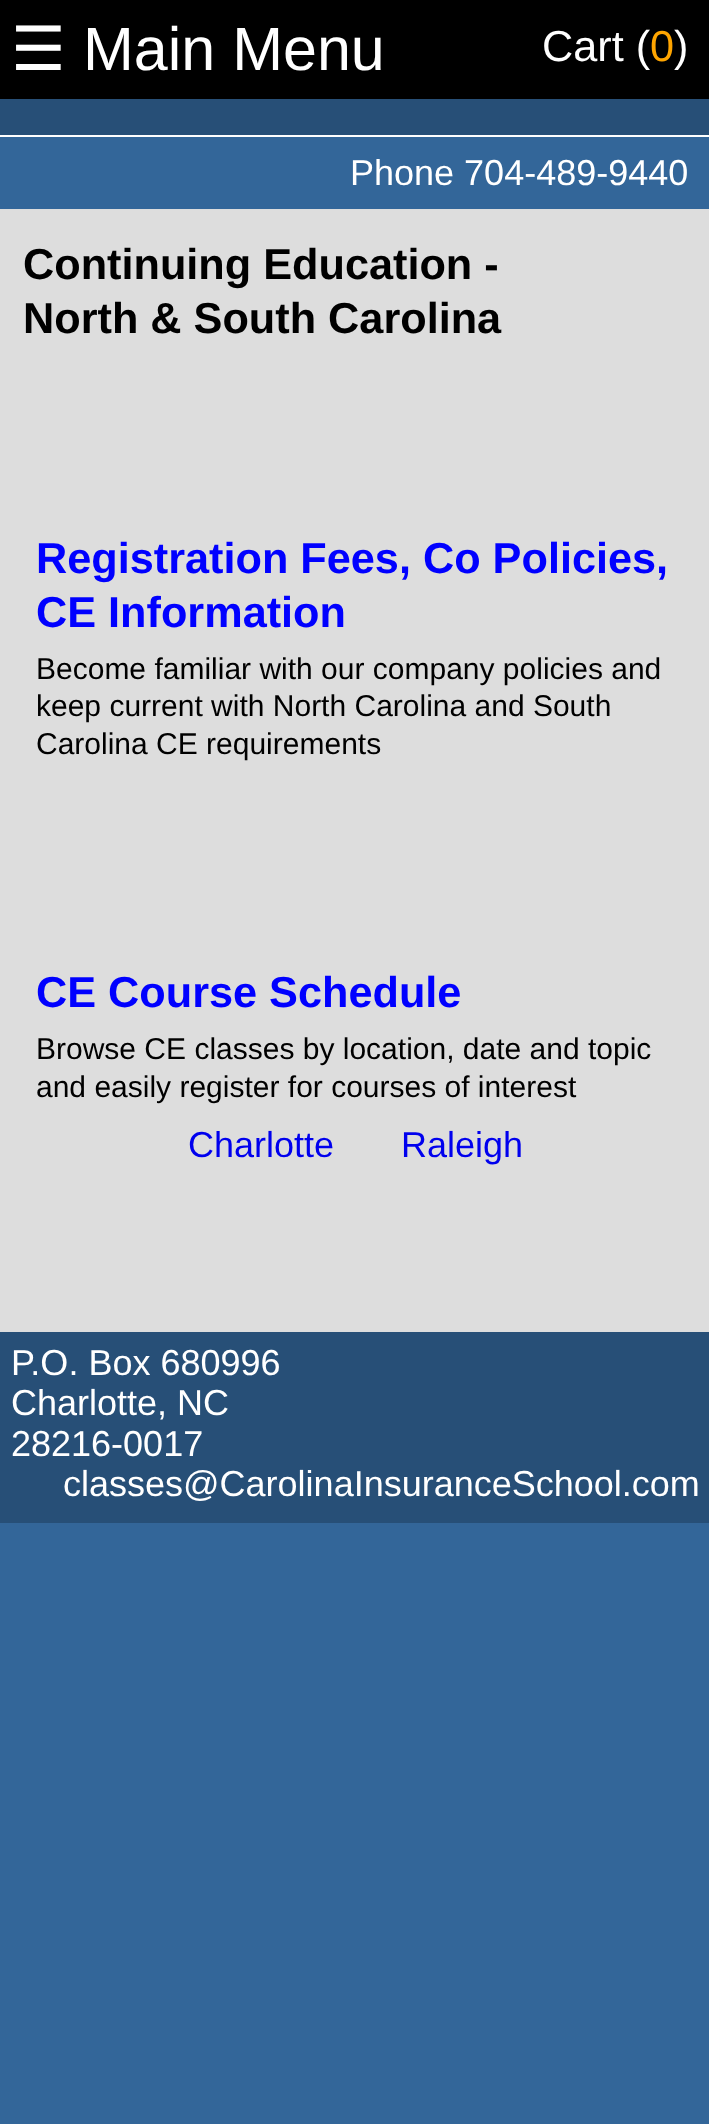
<!DOCTYPE html>
<meta charset="utf-8">
<style>body { margin: 0 } canvas { display: block }</style>
<canvas id="canvas" width="709" height="2124"></canvas>
<script type="module">
  const canvas = document.getElementById("canvas");
  const ctx = canvas.getContext("2d");
  ctx.miterLimit = 4;
  ctx.fontKerning = "normal";

  ctx.fillStyle = "#336699";
  ctx.fillRect(0, 0, 709, 2124);
  ctx.fillStyle = "#dddddd";
  ctx.fillRect(0, 209, 709, 1123);
  ctx.fillStyle = "#000000";
  ctx.fillRect(0, 0, 709, 2);
  ctx.fillRect(0, 2, 709, 97);
  ctx.font = "61px DejaVu Sans";
  ctx.fillStyle = "#ffffff";
  ctx.fillText("☰", 11, 70);
  ctx.font = "61px Liberation Sans";
  ctx.fillText("Main Menu", 83, 70);
  ctx.font = "43.25px Liberation Sans";
  ctx.fillText("Cart (", 542, 61);
  ctx.fillStyle = "#ffa500";
  ctx.fillText("0", 650, 61);
  ctx.fillStyle = "#ffffff";
  ctx.fillText(")", 674, 61);
  ctx.font = "bold 43.25px Liberation Sans";
  ctx.fillStyle = "#000000";
  ctx.fillText("Continuing Education -", 23, 279);
  ctx.fillText("North & South Carolina", 23, 333);
  ctx.fillStyle = "#0000ff";
  ctx.fillText("Registration Fees, Co Policies,", 36, 573);
  ctx.fillText("CE Information", 36, 627);
  ctx.font = "30px Liberation Sans";
  ctx.fillStyle = "#000000";
  ctx.fillText("Become familiar with our company policies and", 36, 679);
  ctx.fillText("keep current with North Carolina and South", 36, 716);
  ctx.fillText("Carolina CE requirements", 36, 754);
  ctx.font = "bold 43.25px Liberation Sans";
  ctx.fillStyle = "#0000ff";
  ctx.fillText("CE Course Schedule", 36, 1007);
  ctx.font = "30px Liberation Sans";
  ctx.fillStyle = "#000000";
  ctx.fillText("Browse CE classes by location, date and topic", 36, 1059);
  ctx.fillText("and easily register for courses of interest", 36, 1097);
  ctx.font = "36px Liberation Sans";
  ctx.fillStyle = "#0000ee";
  ctx.fillText("Charlotte", 188, 1157);
  ctx.fillText("Raleigh", 401, 1157);
  ctx.fillStyle = "#274f77";
  ctx.fillRect(0, 99, 709, 36);
  ctx.fillStyle = "#ffffff";
  ctx.fillRect(0, 135, 709, 2);
  ctx.fillText("Phone 704-489-9440", 350, 185);
  ctx.fillStyle = "#274f77";
  ctx.fillRect(0, 1332, 709, 191);
  ctx.fillStyle = "#ffffff";
  ctx.fillText("P.O. Box 680996", 11, 1375);
  ctx.fillText("Charlotte, NC", 11, 1415);
  ctx.fillText("28216-0017", 11, 1456);
  ctx.fillText("classes@CarolinaInsuranceSchool.com", 63, 1496);
</script>
